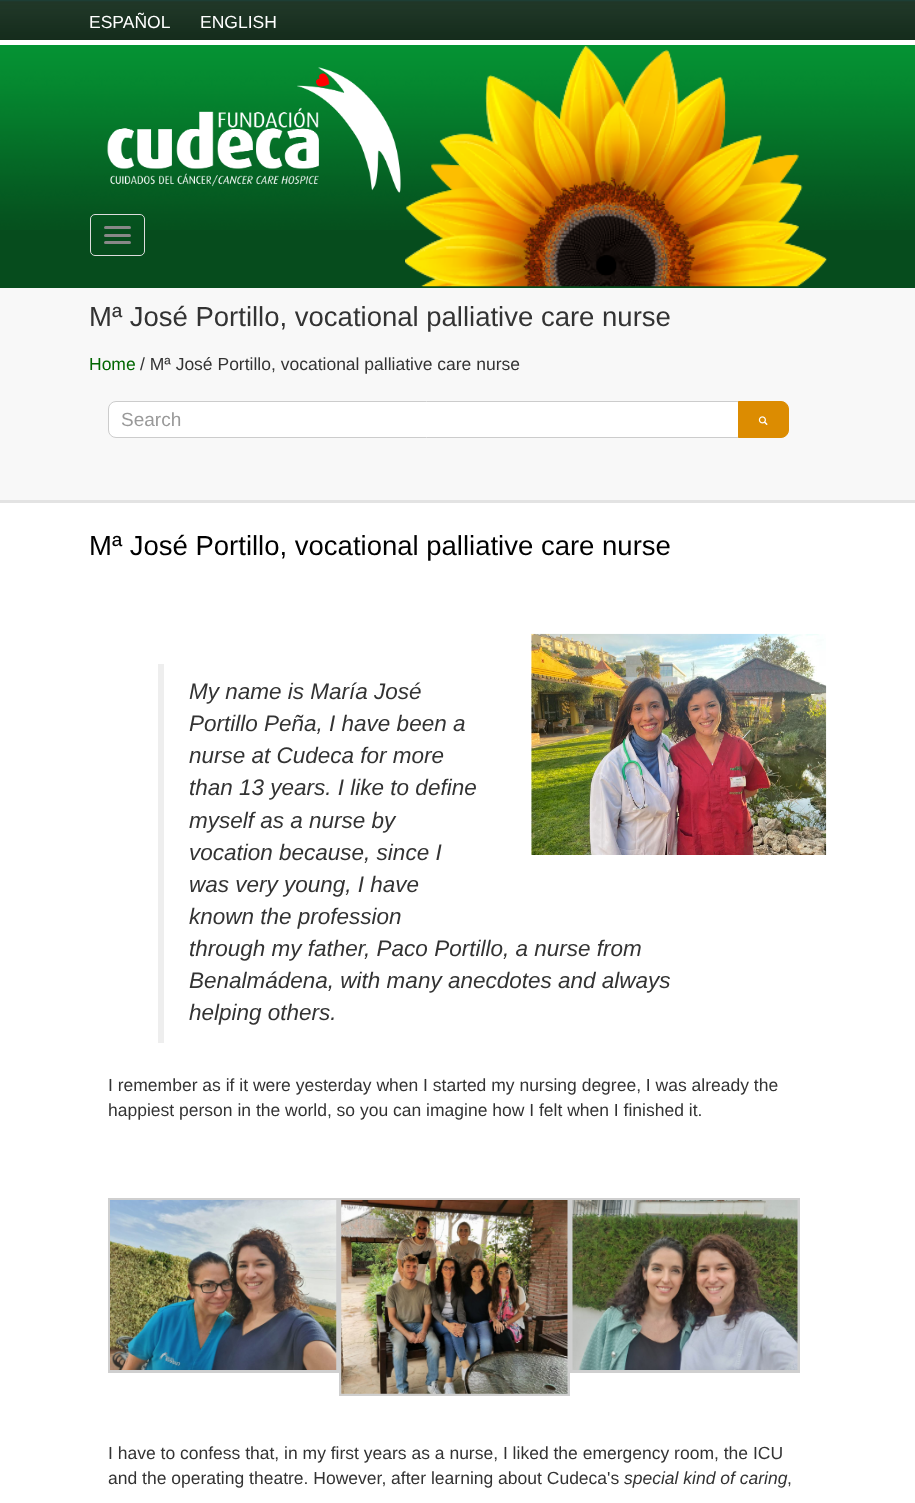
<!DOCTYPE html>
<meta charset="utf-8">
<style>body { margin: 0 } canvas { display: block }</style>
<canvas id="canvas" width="915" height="1503"></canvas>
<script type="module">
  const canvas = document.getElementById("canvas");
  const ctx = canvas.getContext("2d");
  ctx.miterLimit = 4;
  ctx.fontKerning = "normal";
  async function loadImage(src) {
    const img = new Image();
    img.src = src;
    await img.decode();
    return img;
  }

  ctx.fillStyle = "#ffffff";
  ctx.fillRect(0, 0, 915, 1503);
  ctx.drawImage(await loadImage("img1.png"), 0, 0, 915, 40);
  ctx.font = "17.5px Liberation Sans";
  ctx.fillText("ESPAÑOL", 89, 28);
  ctx.fillText("ENGLISH", 200, 28);
  ctx.fillStyle = "#064c1d";
  ctx.fillRect(0, 230, 915, 58);
  ctx.drawImage(await loadImage("img2.png"), 0, 45, 915, 185);
  ctx.drawImage(await loadImage("img3.png"), 405, 46, 422, 241);
  ctx.drawImage(await loadImage("img4.png"), 107, 67, 294, 126);
  ctx.beginPath();
  ctx.roundRect(90.5, 214.5, 54, 41, 4.5);
  ctx.strokeStyle = "#dddddd";
  ctx.stroke();
  ctx.fillStyle = "#888888";
  ctx.beginPath();
  ctx.roundRect(104, 226, 27, 3, 1.5);
  ctx.fill();
  ctx.beginPath();
  ctx.roundRect(104, 234, 27, 3, 1.5);
  ctx.fill();
  ctx.beginPath();
  ctx.roundRect(104, 241, 27, 3, 1.5);
  ctx.fill();
  ctx.fillStyle = "#f8f8f8";
  ctx.fillRect(0, 288, 915, 212);
  ctx.fillStyle = "#e3e3e3";
  ctx.fillRect(0, 500, 915, 3);
  ctx.font = "27.5px Liberation Sans";
  ctx.fillStyle = "#333333";
  ctx.fillText("Mª José Portillo, vocational palliative care nurse", 89, 326);
  ctx.font = "17.5px Liberation Sans";
  ctx.fillStyle = "#006600";
  ctx.fillText("Home", 89, 370);
  ctx.fillStyle = "#333333";
  ctx.fillText("/ Mª José Portillo, vocational palliative care nurse", 140, 370);
  ctx.fillStyle = "#ffffff";
  ctx.beginPath();
  ctx.roundRect(108.5, 401.5, 636, 36, 7.5);
  ctx.fill();
  ctx.strokeStyle = "#cccccc";
  ctx.stroke();
  ctx.font = "19px Liberation Sans";
  ctx.fillStyle = "#999999";
  ctx.fillText("Search", 121, 426);
  ctx.fillStyle = "#dc8c01";
  ctx.beginPath();
  ctx.roundRect(738.5, 401.5, 50, 36, [0, 7.5, 7.5, 0]);
  ctx.fill();
  ctx.strokeStyle = "#dc8c01";
  ctx.stroke();
  ctx.drawImage(await loadImage("img5.png"), 758, 416, 10, 9);
  ctx.font = "27.5px Liberation Sans";
  ctx.fillStyle = "#000000";
  ctx.fillText("Mª José Portillo, vocational palliative care nurse", 89, 555);
  ctx.drawImage(await loadImage("img6.png"), 531, 633, 296, 222);
  ctx.fillStyle = "#eeeeee";
  ctx.fillRect(158, 664, 6, 379);
  ctx.font = "italic 22.5px Liberation Sans";
  ctx.fillStyle = "#333333";
  ctx.fillText("My name is María José", 189, 699);
  ctx.fillText("Portillo Peña, I have been a", 189, 731);
  ctx.fillText("nurse at Cudeca for more", 189, 763);
  ctx.fillText("than 13 years. I like to define", 189, 795);
  ctx.fillText("myself as a nurse by", 189, 828);
  ctx.fillText("vocation because, since I", 189, 860);
  ctx.fillText("was very young, I have", 189, 892);
  ctx.fillText("known the profession", 189, 924);
  ctx.fillText("through my father, Paco Portillo, a nurse from", 189, 956);
  ctx.fillText("Benalmádena, with many anecdotes and always", 189, 988);
  ctx.fillText("helping others.", 189, 1020);
  ctx.font = "17.5px Liberation Sans";
  ctx.fillText("I remember as if it were yesterday when I started my nursing degree, I was already the", 108, 1091);
  ctx.fillText("happiest person in the world, so you can imagine how I felt when I finished it.", 108, 1116);
  ctx.strokeStyle = "#cfcfcf";
  ctx.lineWidth = 3;
  ctx.strokeRect(109.5, 1199.5, 228, 172);
  ctx.drawImage(await loadImage("img7.png"), 110, 1200, 227, 170);
  ctx.strokeRect(340.5, 1199.5, 228, 195);
  ctx.drawImage(await loadImage("img8.png"), 341, 1200, 227, 194);
  ctx.strokeRect(571.5, 1199.5, 227, 172);
  ctx.drawImage(await loadImage("img9.png"), 572, 1200, 226, 170);
  ctx.fillText("I have to confess that, in my first years as a nurse, I liked the emergency room, the ICU", 108, 1459);
  ctx.fillText("and the operating theatre. However, after learning about Cudeca's", 108, 1484);
  ctx.font = "italic 17.5px Liberation Sans";
  ctx.fillText("special kind of caring", 624, 1484);
  ctx.font = "17.5px Liberation Sans";
  ctx.fillText(",", 787, 1484);
</script>
